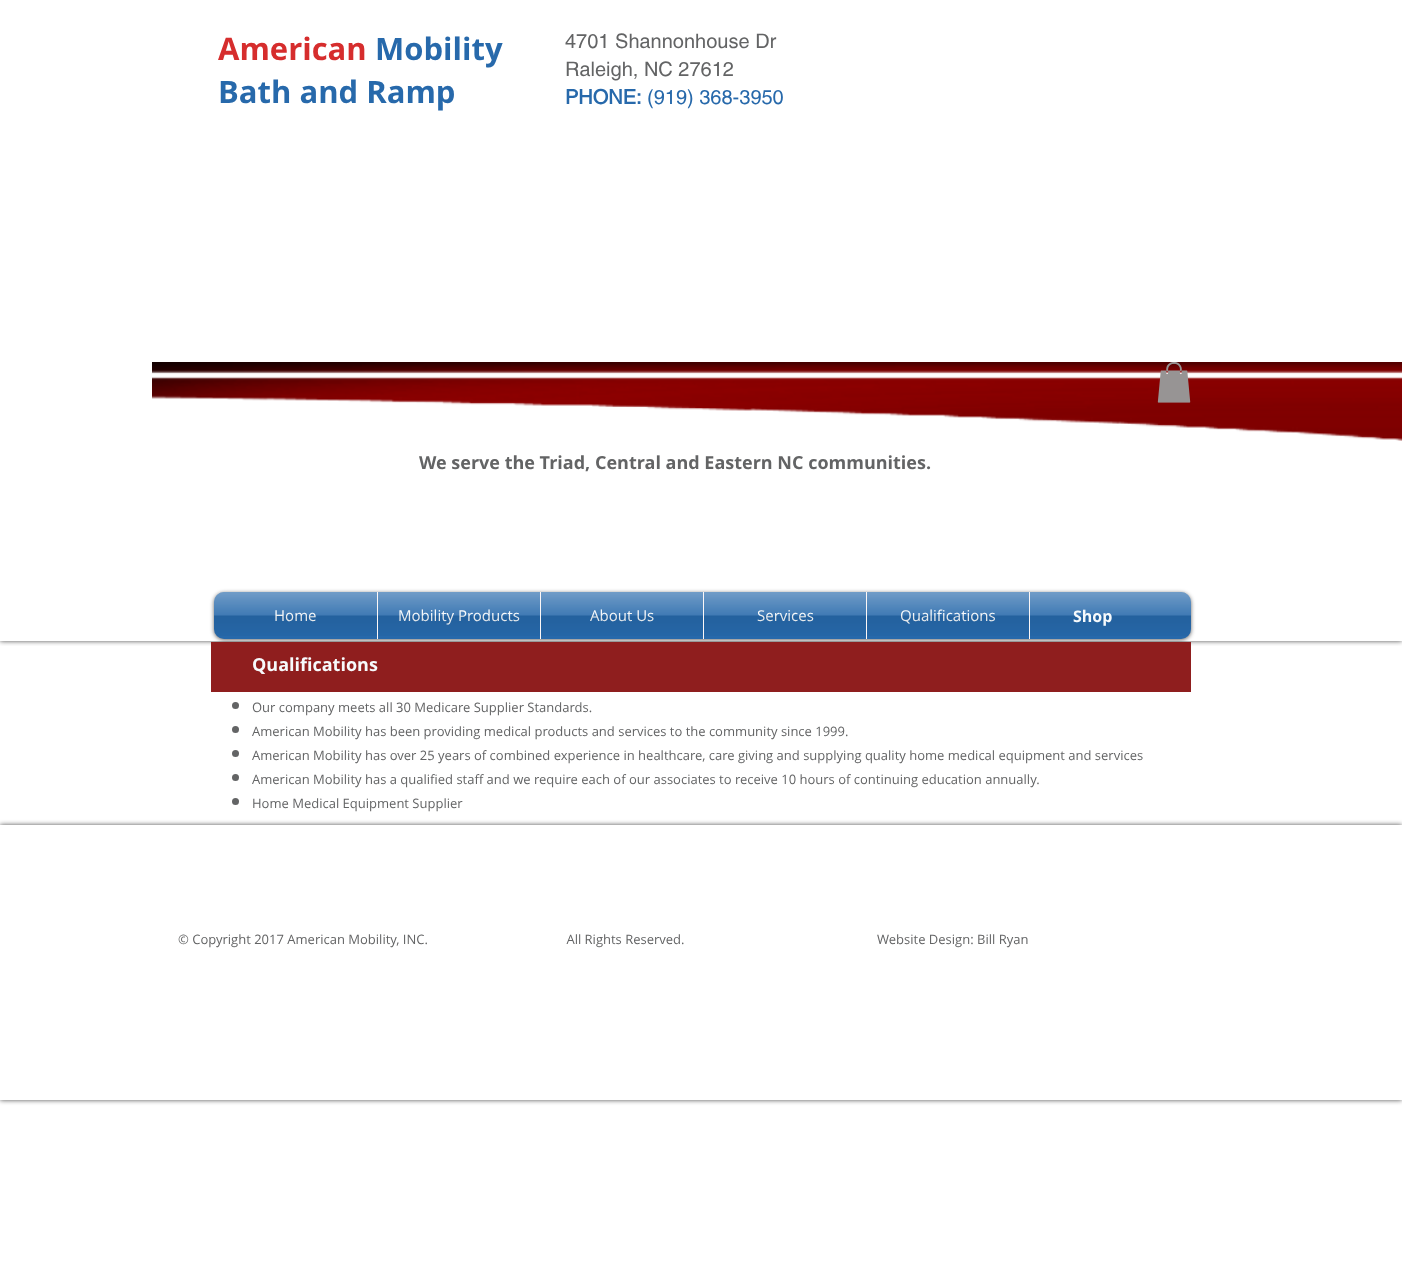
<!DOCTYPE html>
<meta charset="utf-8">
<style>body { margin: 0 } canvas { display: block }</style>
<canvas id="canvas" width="1402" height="1267"></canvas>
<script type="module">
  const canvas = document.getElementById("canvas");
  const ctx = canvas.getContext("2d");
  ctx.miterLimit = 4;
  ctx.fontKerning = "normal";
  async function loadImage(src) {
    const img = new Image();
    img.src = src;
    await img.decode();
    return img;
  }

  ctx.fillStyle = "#ffffff";
  ctx.fillRect(0, 0, 1402, 1267);
  ctx.save();
  ctx.beginPath();
  ctx.rect(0, 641, 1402, 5);
  ctx.clip();
  ctx.fillStyle = "rgba(0, 0, 0, 0.7)";
  ctx.filter = "blur(2.5px)";
  ctx.beginPath();
  ctx.rect(0, 0, 1402, 641);
  ctx.fill();
  ctx.filter = "none";
  ctx.restore();
  ctx.font = "bold 31px Open Sans";
  ctx.fillStyle = "#d62d2d";
  ctx.fillText("American", 218, 60);
  ctx.fillStyle = "#2769ab";
  ctx.fillText("Mobility", 375, 60);
  ctx.fillText("Bath and Ramp", 218, 103);
  ctx.font = "20px helvetica";
  ctx.fillStyle = "#636465";
  ctx.fillText("4701 Shannonhouse Dr", 565, 48);
  ctx.fillText("Raleigh, NC 27612", 565, 76);
  ctx.font = "bold 20px helvetica";
  ctx.fillStyle = "#2769ab";
  ctx.fillText("PHONE:", 565, 104);
  ctx.font = "20px helvetica";
  ctx.fillText("(919) 368-3950", 647, 104);
  ctx.drawImage(await loadImage("img1.png"), 152, 362, 1250, 79);
  ctx.drawImage(await loadImage("img2.png"), 1157, 362, 34, 41);
  ctx.font = "bold 18px Open Sans";
  ctx.fillStyle = "#636465";
  ctx.fillText("We serve the Triad, Central and Eastern NC communities.", 419, 469);
  ctx.fillStyle = "rgba(0, 0, 0, 0.6)";
  ctx.filter = "blur(2px)";
  ctx.beginPath();
  ctx.roundRect(214, 593, 977, 47, 10);
  ctx.fill();
  ctx.filter = "none";
  ctx.drawImage(await loadImage("img3.png"), 214, 592, 977, 39);
  ctx.fillStyle = "#2769ab";
  ctx.beginPath();
  ctx.roundRect(214, 592, 163, 47, [10, 0, 0, 10]);
  ctx.fill();
  ctx.font = "15px Open Sans";
  ctx.fillStyle = "#f7fafc";
  ctx.fillText("Home", 274, 621);
  ctx.drawImage(await loadImage("img4.png"), 214, 592, 163, 44);
  ctx.fillStyle = "#2769ab";
  ctx.fillRect(378, 592, 162, 47);
  ctx.fillStyle = "#fcf7f7";
  ctx.fillRect(377, 592, 1, 47);
  ctx.fillStyle = "#f7fafc";
  ctx.fillText("Mobility Products", 398, 621);
  ctx.drawImage(await loadImage("img5.png"), 378, 592, 162, 44);
  ctx.fillStyle = "#2769ab";
  ctx.fillRect(541, 592, 162, 47);
  ctx.fillStyle = "#fcf7f7";
  ctx.fillRect(540, 592, 1, 47);
  ctx.fillStyle = "#f7fafc";
  ctx.fillText("About Us", 590, 621);
  ctx.drawImage(await loadImage("img6.png"), 541, 592, 162, 44);
  ctx.fillStyle = "#2769ab";
  ctx.fillRect(704, 592, 162, 47);
  ctx.fillStyle = "#fcf7f7";
  ctx.fillRect(703, 592, 1, 47);
  ctx.fillStyle = "#f7fafc";
  ctx.fillText("Services", 757, 621);
  ctx.drawImage(await loadImage("img7.png"), 704, 592, 162, 44);
  ctx.fillStyle = "#2769ab";
  ctx.fillRect(867, 592, 162, 47);
  ctx.fillStyle = "#fcf7f7";
  ctx.fillRect(866, 592, 1, 47);
  ctx.fillStyle = "#f7fafc";
  ctx.fillText("Qualifications", 900, 621);
  ctx.drawImage(await loadImage("img8.png"), 867, 592, 162, 44);
  ctx.fillStyle = "#2769ab";
  ctx.beginPath();
  ctx.roundRect(1029, 592, 162, 47, [0, 10, 10, 0]);
  ctx.fill();
  ctx.fillStyle = "#fcf7f7";
  ctx.fillRect(1029, 592, 1, 47);
  ctx.drawImage(await loadImage("img9.png"), 1030, 592, 161, 44);
  ctx.font = "bold 16px Open Sans";
  ctx.fillStyle = "#f7fafc";
  ctx.fillText("Shop", 1073, 622);
  ctx.fillStyle = "#8f1e1e";
  ctx.fillRect(211, 642, 980, 50);
  ctx.font = "bold 18px Open Sans";
  ctx.fillStyle = "#f7fafc";
  ctx.fillText("Qualifications", 252, 671);
  ctx.fillStyle = "#636465";
  ctx.beginPath();
  ctx.arc(235.5, 705.5, 3.5, 0, Math.PI * 2);
  ctx.fill();
  ctx.font = "13px Open Sans";
  ctx.fillText("Our company meets all 30 Medicare Supplier Standards.", 252, 712);
  ctx.beginPath();
  ctx.arc(235.5, 729.5, 3.5, 0, Math.PI * 2);
  ctx.fill();
  ctx.fillText("American Mobility has been providing medical products and services to the community since 1999.", 252, 736);
  ctx.beginPath();
  ctx.arc(235.5, 753.5, 3.5, 0, Math.PI * 2);
  ctx.fill();
  ctx.fillText("American Mobility has over 25 years of combined experience in healthcare, care giving and supplying quality home medical equipment and services", 252, 760);
  ctx.beginPath();
  ctx.arc(235.5, 777.5, 3.5, 0, Math.PI * 2);
  ctx.fill();
  ctx.fillText("American Mobility has a qualified staff and we require each of our associates to receive 10 hours of continuing education annually.", 252, 784);
  ctx.beginPath();
  ctx.arc(235.5, 801.5, 3.5, 0, Math.PI * 2);
  ctx.fill();
  ctx.fillText("Home Medical Equipment Supplier", 252, 808);
  ctx.save();
  ctx.beginPath();
  ctx.moveTo(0, 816);
  ctx.lineTo(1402, 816);
  ctx.lineTo(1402, 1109);
  ctx.lineTo(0, 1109);
  ctx.closePath();
  ctx.moveTo(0, 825);
  ctx.lineTo(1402, 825);
  ctx.lineTo(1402, 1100);
  ctx.lineTo(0, 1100);
  ctx.closePath();
  ctx.clip("evenodd");
  ctx.fillStyle = "rgba(0, 0, 0, 0.7)";
  ctx.filter = "blur(2.5px)";
  ctx.beginPath();
  ctx.rect(0, 825, 1402, 275);
  ctx.fill();
  ctx.filter = "none";
  ctx.restore();
  ctx.fillText("© Copyright 2017 American Mobility, INC.                                         All Rights Reserved.                                                         Website Design: Bill Ryan", 178, 944);
</script>
